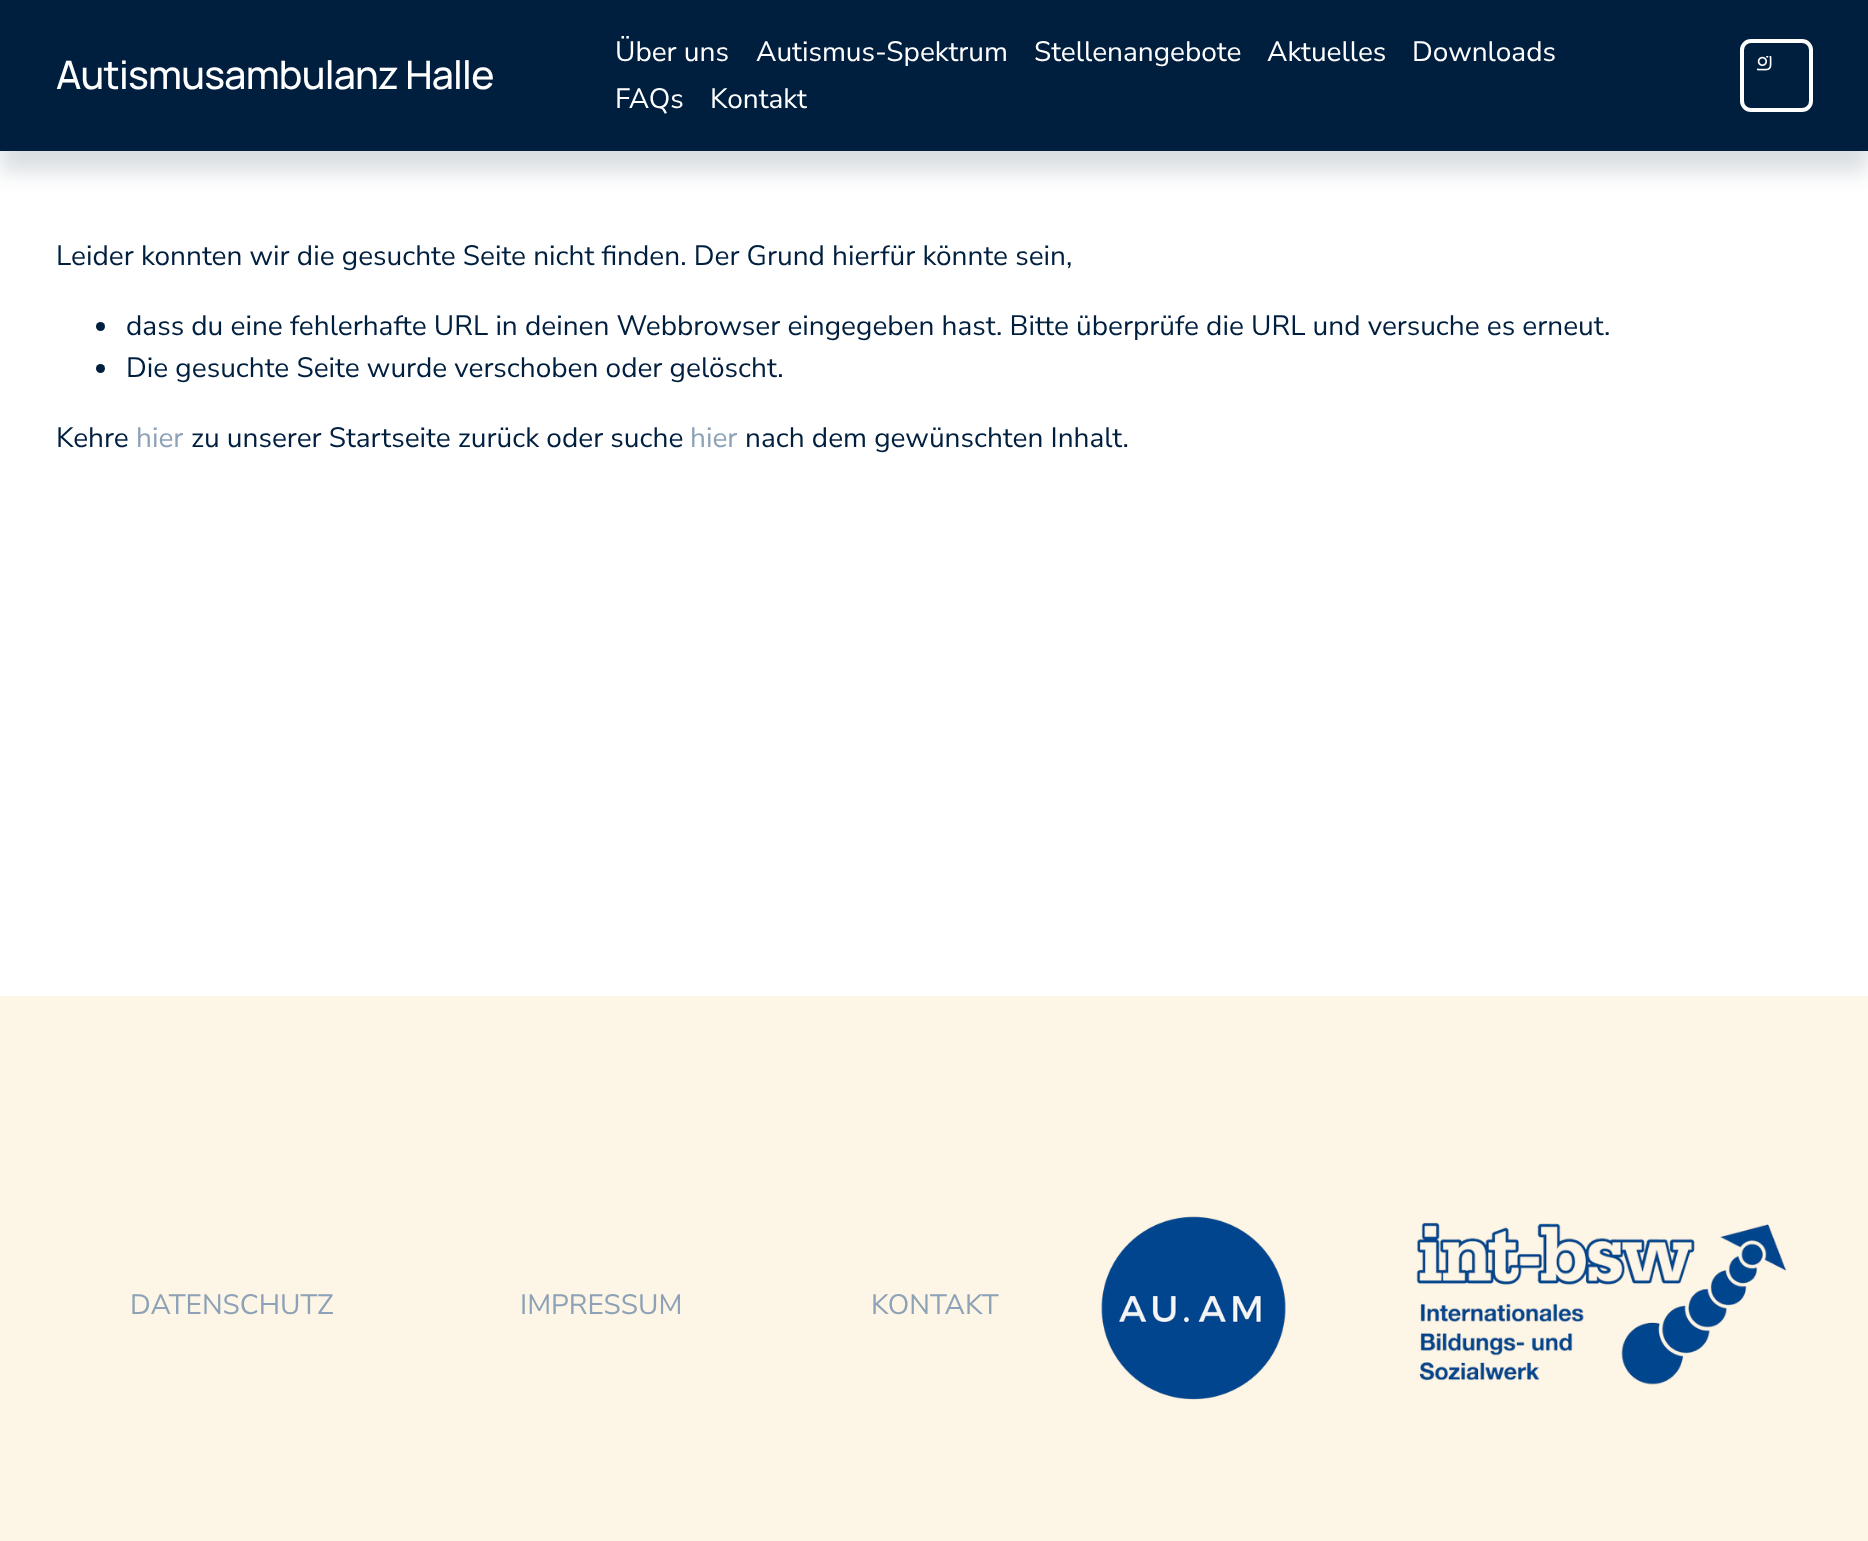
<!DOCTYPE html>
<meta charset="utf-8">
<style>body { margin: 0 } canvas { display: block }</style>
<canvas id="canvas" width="1868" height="1541"></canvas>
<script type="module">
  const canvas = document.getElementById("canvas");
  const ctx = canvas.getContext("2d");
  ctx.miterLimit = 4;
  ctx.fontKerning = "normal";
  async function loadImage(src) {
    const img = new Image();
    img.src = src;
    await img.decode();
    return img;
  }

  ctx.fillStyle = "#ffffff";
  ctx.fillRect(0, 0, 1868, 1541);
  ctx.fillStyle = "#001f3f";
  ctx.fillRect(0, 0, 1868, 151);
  ctx.save();
  ctx.beginPath();
  ctx.moveTo(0, 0);
  ctx.lineTo(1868, 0);
  ctx.lineTo(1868, 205);
  ctx.lineTo(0, 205);
  ctx.closePath();
  ctx.moveTo(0, 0);
  ctx.lineTo(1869, 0);
  ctx.lineTo(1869, 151);
  ctx.lineTo(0, 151);
  ctx.closePath();
  ctx.clip("evenodd");
  ctx.fillStyle = "rgba(0, 31, 63, 0.15)";
  ctx.filter = "blur(10.5px)";
  ctx.beginPath();
  ctx.rect(0, 21, 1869, 151);
  ctx.fill();
  ctx.filter = "none";
  ctx.restore();
  ctx.letterSpacing = "-0.75px";
  ctx.font = "500 39.25px Manrope";
  ctx.fillStyle = "#ffffff";
  ctx.fillText("Autismusambulanz Halle", 56, 89);
  ctx.letterSpacing = "0px";
  ctx.font = "28px Nunito Sans";
  ctx.fillText("Über uns", 615, 61);
  ctx.fillText("Autismus-Spektrum", 756, 61);
  ctx.fillText("Stellenangebote", 1034, 61);
  ctx.fillText("Aktuelles", 1267, 61);
  ctx.fillText("Downloads", 1412, 61);
  ctx.fillText("FAQs", 615, 108);
  ctx.fillText("Kontakt", 710, 108);
  ctx.beginPath();
  ctx.roundRect(1742, 41, 69, 69, 9);
  ctx.strokeStyle = "#ffffff";
  ctx.lineWidth = 4;
  ctx.stroke();
  ctx.drawImage(await loadImage("img1.png"), 1757, 56, 15, 15);
  ctx.fillStyle = "#001f3f";
  ctx.fillText("Leider konnten wir die gesuchte Seite nicht finden. Der Grund hierfür könnte sein,", 56, 265);
  ctx.beginPath();
  ctx.arc(100.5, 326.5, 4.5, 0, Math.PI * 2);
  ctx.fill();
  ctx.fillText("dass du eine fehlerhafte URL in deinen Webbrowser eingegeben hast. Bitte überprüfe die URL und versuche es erneut.", 126, 335);
  ctx.beginPath();
  ctx.arc(100.5, 368.5, 4.5, 0, Math.PI * 2);
  ctx.fill();
  ctx.fillText("Die gesuchte Seite wurde verschoben oder gelöscht.", 126, 377);
  ctx.fillText("Kehre", 56, 447);
  ctx.fillStyle = "#8da2b6";
  ctx.fillText("hier", 136, 447);
  ctx.fillStyle = "#001f3f";
  ctx.fillText("zu unserer Startseite zurück oder suche", 191, 447);
  ctx.fillStyle = "#8da2b6";
  ctx.fillText("hier", 690, 447);
  ctx.fillStyle = "#001f3f";
  ctx.fillText("nach dem gewünschten Inhalt.", 745, 447);
  ctx.fillStyle = "#fdf5e6";
  ctx.fillRect(0, 996, 1868, 545);
  ctx.fillStyle = "#8da2b6";
  ctx.fillText("DATENSCHUTZ", 130, 1314);
  ctx.fillText("IMPRESSUM", 520, 1314);
  ctx.fillText("KONTAKT", 871, 1314);
  ctx.drawImage(await loadImage("img2.png"), 1101, 1216, 185, 184);
  ctx.drawImage(await loadImage("img3.png"), 1416, 1222, 371, 163);
</script>
